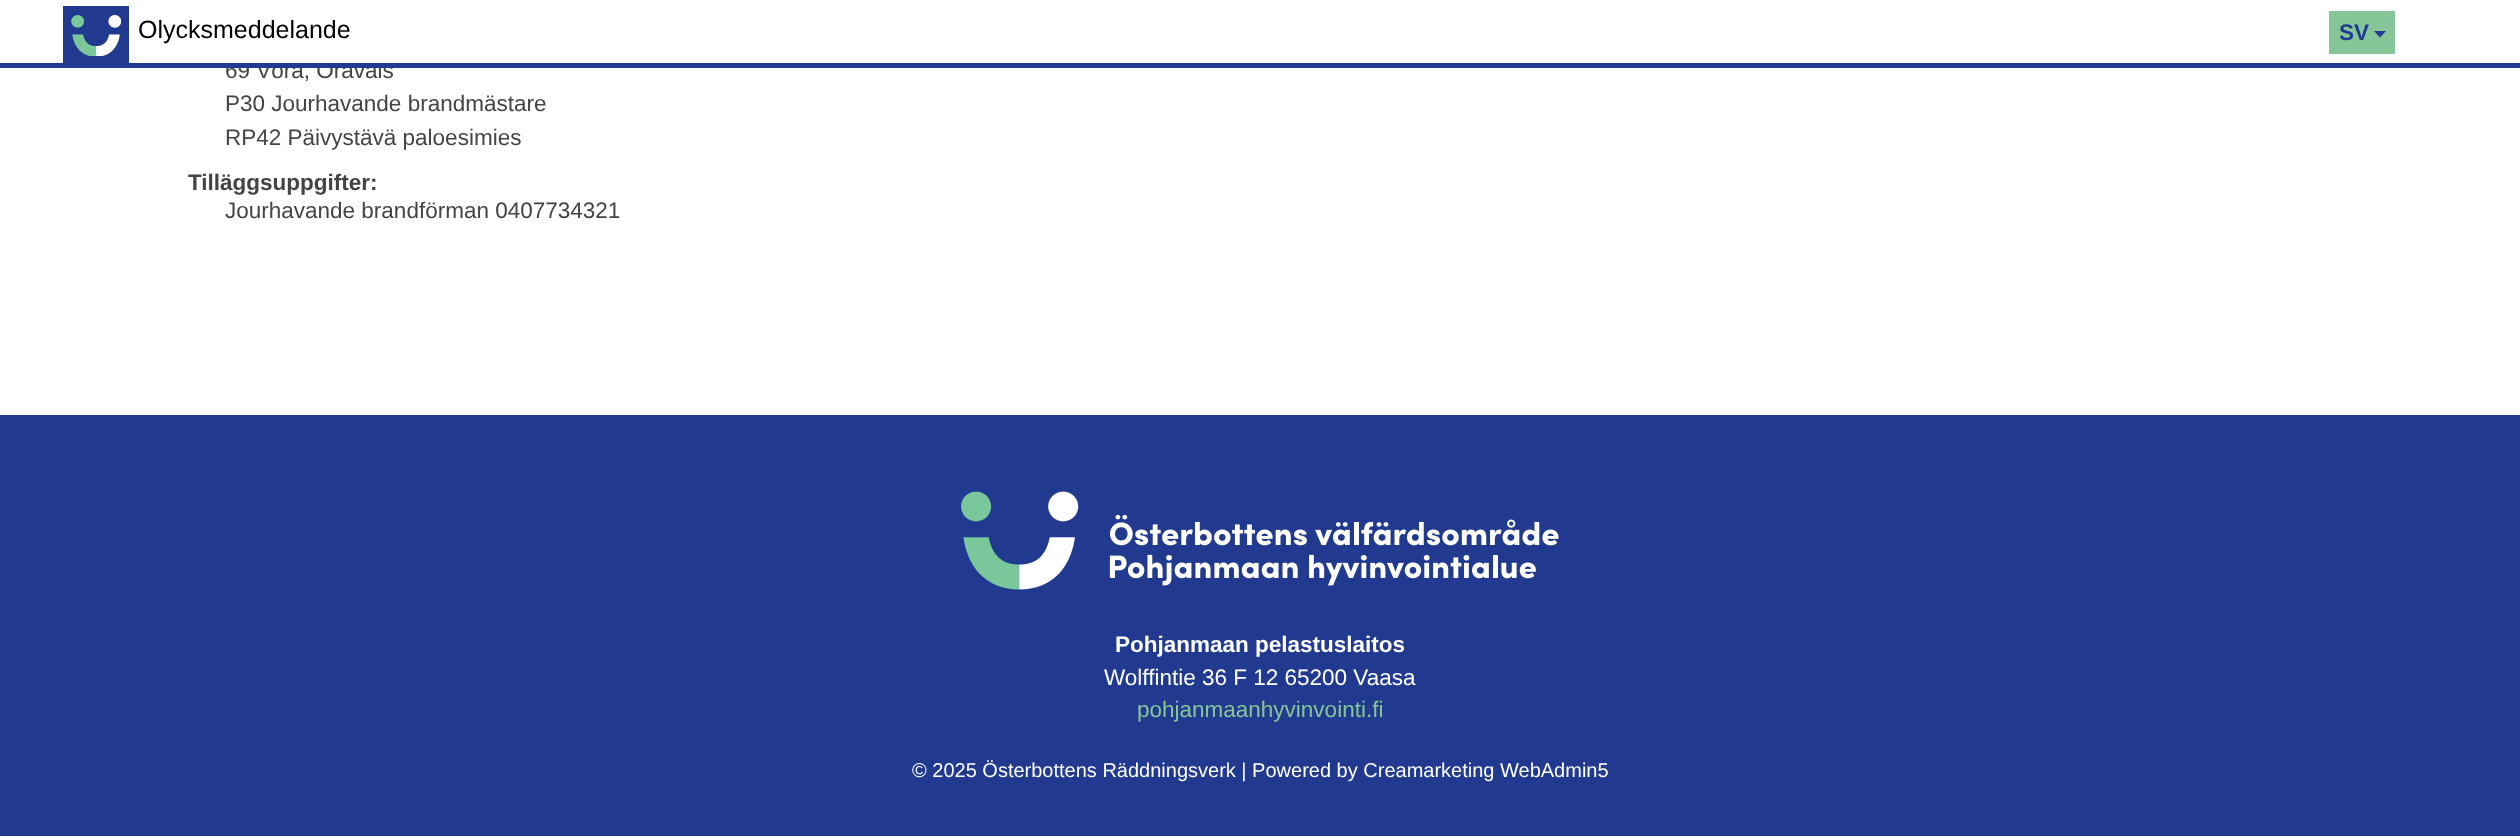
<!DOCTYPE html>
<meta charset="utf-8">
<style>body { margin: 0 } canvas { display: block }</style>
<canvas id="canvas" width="2520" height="836"></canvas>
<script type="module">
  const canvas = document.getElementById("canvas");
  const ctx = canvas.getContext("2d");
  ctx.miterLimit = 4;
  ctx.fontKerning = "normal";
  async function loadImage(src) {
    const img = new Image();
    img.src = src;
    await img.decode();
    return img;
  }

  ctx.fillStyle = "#ffffff";
  ctx.fillRect(0, 0, 2520, 836);
  ctx.font = "22.5px Liberation Sans";
  ctx.fillStyle = "#444444";
  ctx.fillText("69 Vörå, Oravais", 225, 78);
  ctx.fillStyle = "#ffffff";
  ctx.fillRect(229, 59, 153, 4);
  ctx.fillStyle = "#213a8f";
  ctx.fillRect(0, 63, 2520, 5);
  ctx.fillRect(63, 6, 66, 57);
  ctx.drawImage(await loadImage("img1.png"), 71, 15, 50, 41);
  ctx.font = "25px Liberation Sans";
  ctx.fillStyle = "#000000";
  ctx.fillText("Olycksmeddelande", 138, 38);
  ctx.fillStyle = "#85c598";
  ctx.fillRect(2329, 11, 66, 43);
  ctx.font = "bold 22.5px Liberation Sans";
  ctx.fillStyle = "#213a8f";
  ctx.fillText("SV", 2339, 40);
  ctx.beginPath();
  ctx.moveTo(2374, 31);
  ctx.lineTo(2386, 31);
  ctx.lineTo(2380, 37.5);
  ctx.closePath();
  ctx.fill();
  ctx.font = "22.5px Liberation Sans";
  ctx.fillStyle = "#444444";
  ctx.fillText("P30 Jourhavande brandmästare", 225, 111);
  ctx.fillText("RP42 Päivystävä paloesimies", 225, 145);
  ctx.font = "bold 22.5px Liberation Sans";
  ctx.fillText("Tilläggsuppgifter:", 188, 190);
  ctx.font = "22.5px Liberation Sans";
  ctx.fillText("Jourhavande brandförman 0407734321", 225, 218);
  ctx.fillStyle = "#213a8f";
  ctx.fillRect(0, 415, 2520, 421);
  ctx.drawImage(await loadImage("img2.png"), 961, 491, 598, 99);
  ctx.font = "bold 22.5px Liberation Sans";
  ctx.fillStyle = "#ffffff";
  ctx.fillText("Pohjanmaan pelastuslaitos", 1115, 652);
  ctx.font = "22.5px Liberation Sans";
  ctx.fillText("Wolffintie 36 F 12 65200 Vaasa", 1104, 685);
  ctx.fillStyle = "#85c598";
  ctx.fillText("pohjanmaanhyvinvointi.fi", 1137, 717);
  ctx.font = "20px Liberation Sans";
  ctx.fillStyle = "#ffffff";
  ctx.fillText("© 2025 Österbottens Räddningsverk | Powered by Creamarketing WebAdmin5", 912, 777);
</script>
